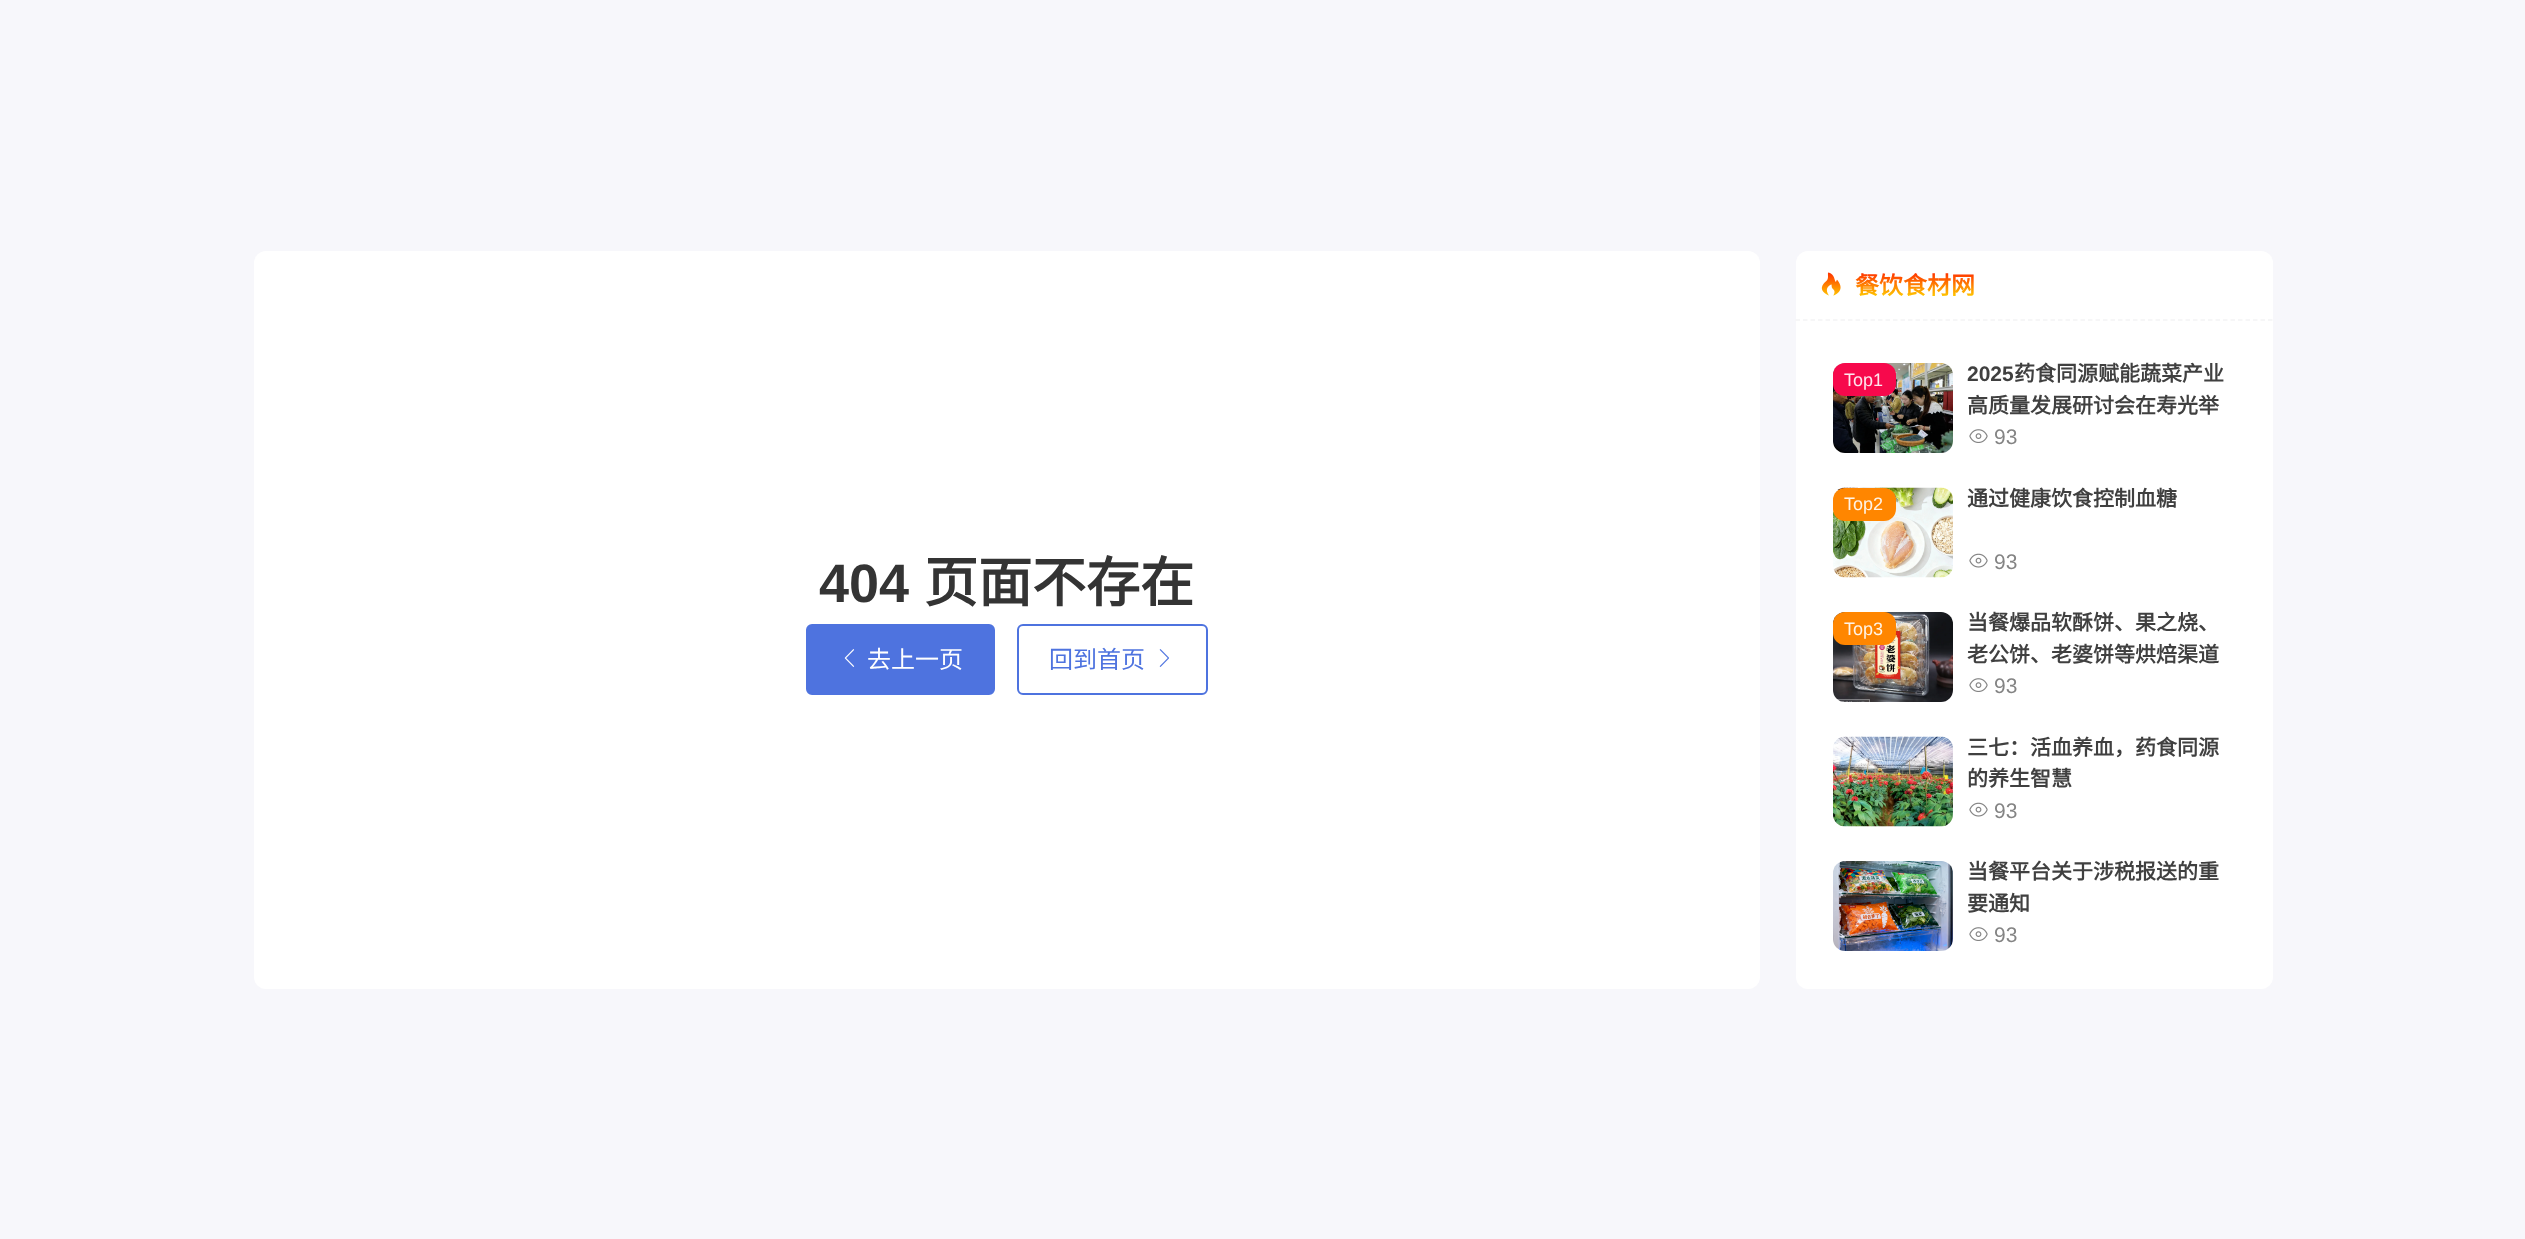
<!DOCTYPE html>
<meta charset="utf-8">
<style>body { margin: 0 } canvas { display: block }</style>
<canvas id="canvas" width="2525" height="1239"></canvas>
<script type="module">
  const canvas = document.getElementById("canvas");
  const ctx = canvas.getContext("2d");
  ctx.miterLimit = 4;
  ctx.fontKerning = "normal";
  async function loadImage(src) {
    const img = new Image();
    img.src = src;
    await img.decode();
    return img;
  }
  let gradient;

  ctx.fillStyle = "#f7f7fb";
  ctx.fillRect(0, 0, 2525, 1239);
  ctx.fillStyle = "#ffffff";
  ctx.beginPath();
  ctx.roundRect(254, 251, 1506, 738, 12);
  ctx.fill();
  ctx.font = "bold 54px Liberation Sans";
  ctx.fillStyle = "#343434";
  ctx.fillText("404", 819, 602);
  ctx.font = "bold 54px Noto Sans CJK SC";
  ctx.fillText("页面不存在", 924, 602);
  ctx.fillStyle = "#4e73df";
  ctx.beginPath();
  ctx.roundRect(807, 625, 187, 69, 5);
  ctx.fill();
  ctx.strokeStyle = "#4e73df";
  ctx.lineWidth = 2;
  ctx.stroke();
  ctx.drawImage(await loadImage("img1.png"), 844, 649, 11, 18);
  ctx.font = "24px Noto Sans CJK SC";
  ctx.fillStyle = "#ffffff";
  ctx.fillText("去上一页", 867, 668);
  ctx.beginPath();
  ctx.roundRect(1018, 625, 189, 69, 5);
  ctx.stroke();
  ctx.fillStyle = "#4e73df";
  ctx.fillText("回到首页", 1049, 668);
  ctx.drawImage(await loadImage("img2.png"), 1159, 649, 10, 18);
  ctx.fillStyle = "#ffffff";
  ctx.beginPath();
  ctx.roundRect(1796, 251, 477, 738, 12);
  ctx.fill();
  ctx.beginPath();
  ctx.moveTo(1795.5, 320);
  ctx.lineTo(2272.5, 320);
  ctx.strokeStyle = "#f4f4f5";
  ctx.lineWidth = 1.5;
  ctx.setLineDash([4.5, 3]);
  ctx.stroke();
  ctx.drawImage(await loadImage("img3.png"), 1821, 272, 20, 24);
  ctx.font = "bold 24px Noto Sans CJK SC";
  gradient = ctx.createLinearGradient(2034, 265, 2034, 305);
  gradient.addColorStop(0, "#ff0000");
  gradient.addColorStop(1, "#ffff00");
  ctx.fillStyle = gradient;
  ctx.fillText("餐饮食材网", 1855, 294);
  ctx.drawImage(await loadImage("img4.png"), 1833, 363, 120, 90);
  ctx.fillStyle = "#f7094c";
  ctx.beginPath();
  ctx.roundRect(1833, 363, 63, 33, 12);
  ctx.fill();
  ctx.font = "18px Liberation Sans";
  ctx.fillStyle = "#fee6ed";
  ctx.fillText("Top1", 1844, 386);
  ctx.font = "bold 21px Liberation Sans";
  ctx.fillStyle = "#404040";
  ctx.fillText("2025", 1967, 381);
  ctx.font = "bold 21px Noto Sans CJK SC";
  ctx.fillText("药食同源赋能蔬菜产业", 2014, 381);
  ctx.fillText("高质量发展研讨会在寿光举", 1967, 413);
  ctx.drawImage(await loadImage("img5.png"), 1969, 429, 19, 14);
  ctx.font = "21px Liberation Sans";
  ctx.fillStyle = "#848484";
  ctx.fillText("93", 1994, 444);
  ctx.drawImage(await loadImage("img6.png"), 1833, 487, 120, 91);
  ctx.fillStyle = "#ff8600";
  ctx.beginPath();
  ctx.roundRect(1833, 488, 63, 33, 12);
  ctx.fill();
  ctx.font = "18px Liberation Sans";
  ctx.fillStyle = "#fff3e6";
  ctx.fillText("Top2", 1844, 510);
  ctx.font = "bold 21px Noto Sans CJK SC";
  ctx.fillStyle = "#404040";
  ctx.fillText("通过健康饮食控制血糖", 1967, 506);
  ctx.drawImage(await loadImage("img7.png"), 1969, 553, 19, 15);
  ctx.font = "21px Liberation Sans";
  ctx.fillStyle = "#848484";
  ctx.fillText("93", 1994, 569);
  ctx.drawImage(await loadImage("img8.png"), 1833, 612, 120, 90);
  ctx.fillStyle = "#ff8600";
  ctx.beginPath();
  ctx.roundRect(1833, 612, 63, 33, 12);
  ctx.fill();
  ctx.font = "18px Liberation Sans";
  ctx.fillStyle = "#fff3e6";
  ctx.fillText("Top3", 1844, 635);
  ctx.font = "bold 21px Noto Sans CJK SC";
  ctx.fillStyle = "#404040";
  ctx.fillText("当餐爆品软酥饼、果之烧、", 1967, 630);
  ctx.fillText("老公饼、老婆饼等烘焙渠道", 1967, 662);
  ctx.drawImage(await loadImage("img5.png"), 1969, 678, 19, 14);
  ctx.font = "21px Liberation Sans";
  ctx.fillStyle = "#848484";
  ctx.fillText("93", 1994, 693);
  ctx.drawImage(await loadImage("img9.png"), 1833, 736, 120, 91);
  ctx.font = "bold 21px Noto Sans CJK SC";
  ctx.fillStyle = "#404040";
  ctx.fillText("三七：活血养血，药食同源", 1967, 755);
  ctx.fillText("的养生智慧", 1967, 786);
  ctx.drawImage(await loadImage("img7.png"), 1969, 802, 19, 15);
  ctx.font = "21px Liberation Sans";
  ctx.fillStyle = "#848484";
  ctx.fillText("93", 1994, 818);
  ctx.drawImage(await loadImage("img10.png"), 1833, 861, 120, 90);
  ctx.font = "bold 21px Noto Sans CJK SC";
  ctx.fillStyle = "#404040";
  ctx.fillText("当餐平台关于涉税报送的重", 1967, 879);
  ctx.fillText("要通知", 1967, 911);
  ctx.drawImage(await loadImage("img5.png"), 1969, 927, 19, 14);
  ctx.font = "21px Liberation Sans";
  ctx.fillStyle = "#848484";
  ctx.fillText("93", 1994, 942);
</script>
